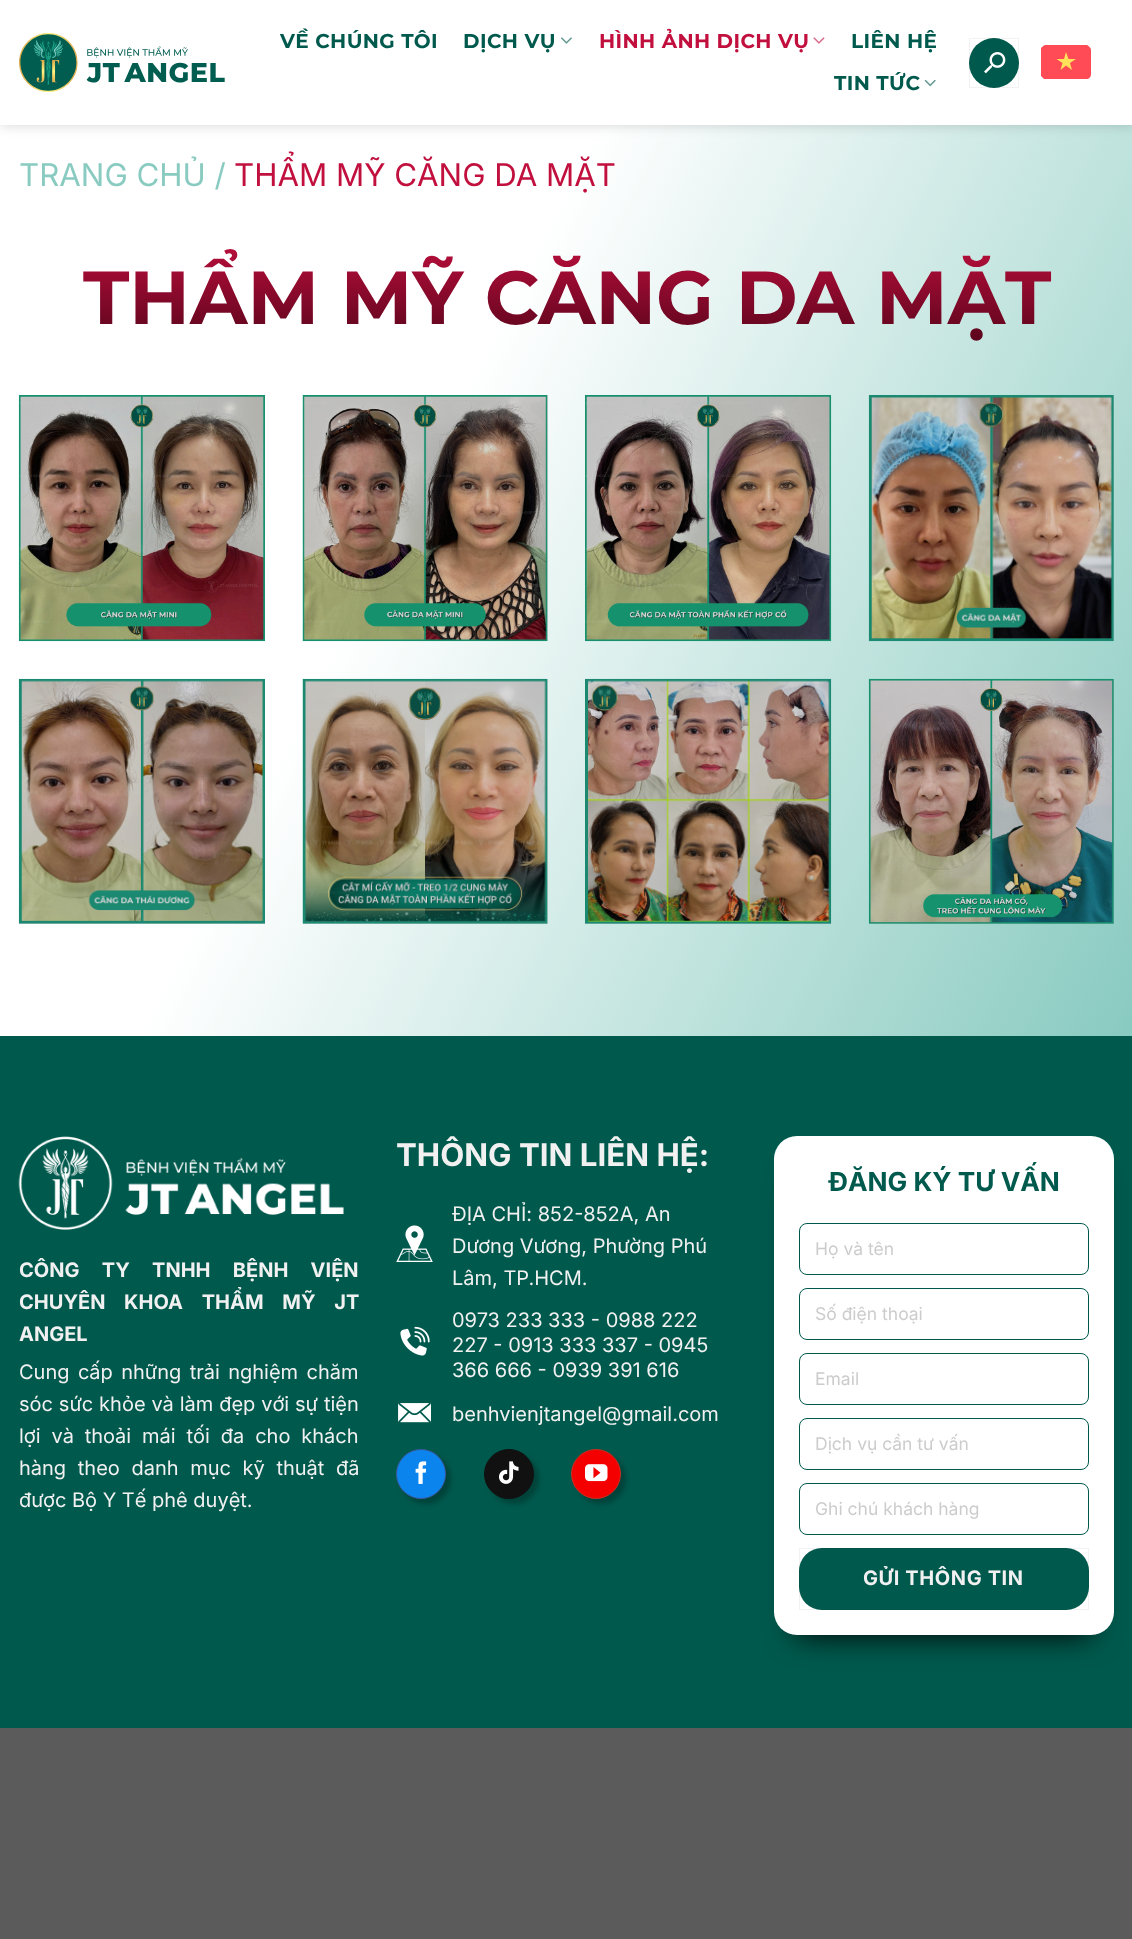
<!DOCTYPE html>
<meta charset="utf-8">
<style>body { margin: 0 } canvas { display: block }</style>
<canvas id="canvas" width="1132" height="1939"></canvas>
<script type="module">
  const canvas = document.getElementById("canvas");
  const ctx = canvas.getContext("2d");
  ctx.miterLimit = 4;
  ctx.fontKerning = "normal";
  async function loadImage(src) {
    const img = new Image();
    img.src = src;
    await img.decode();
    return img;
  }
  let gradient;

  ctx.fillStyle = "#5b5b5b";
  ctx.fillRect(0, 0, 1132, 1939);
  gradient = ctx.createLinearGradient(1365, 1268, -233, 460);
  gradient.addColorStop(0.18, "#8acbc1");
  gradient.addColorStop(0.67, "#ffffff");
  ctx.fillStyle = gradient;
  ctx.fillRect(0, 125, 1132, 911);
  gradient = ctx.createLinearGradient(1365, 1268, -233, 460);
  gradient.addColorStop(0.18, "#75ada4");
  gradient.addColorStop(0.67, "#d9d9d9");
  ctx.fillStyle = gradient;
  ctx.fillRect(869, 679, 245, 245);
  ctx.fillRect(585, 923, 246, 1);
  ctx.fillRect(303, 679, 245, 245);
  ctx.fillRect(19, 923, 246, 1);
  ctx.fillRect(1113, 395, 1, 246);
  ctx.fillRect(547, 395, 1, 246);
  ctx.fillStyle = "rgba(0, 0, 0, 0.15)";
  ctx.filter = "blur(6px)";
  ctx.beginPath();
  ctx.rect(1, 1, 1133, 125);
  ctx.fill();
  ctx.filter = "none";
  ctx.fillStyle = "#ffffff";
  ctx.fillRect(0, 0, 1132, 125);
  ctx.drawImage(await loadImage("img1.png"), 19, 33, 206, 59);
  ctx.letterSpacing = "0.4px";
  ctx.font = "bold 20px Montserrat";
  ctx.fillStyle = "#00594d";
  ctx.fillText("VỀ CHÚNG TÔI", 280, 48);
  ctx.fillText("DỊCH VỤ", 463, 48);
  ctx.drawImage(await loadImage("img2.png"), 560, 37, 12, 7);
  ctx.fillStyle = "#c10f3e";
  ctx.fillText("HÌNH ẢNH DỊCH VỤ", 599, 48);
  ctx.drawImage(await loadImage("img3.png"), 813, 37, 12, 7);
  ctx.fillStyle = "#00594d";
  ctx.fillText("LIÊN HỆ", 851, 48);
  ctx.fillText("TIN TỨC", 834, 90);
  ctx.drawImage(await loadImage("img4.png"), 924, 79, 12, 8);
  ctx.beginPath();
  ctx.arc(994, 63, 25, 0, Math.PI * 2);
  ctx.fill();
  ctx.drawImage(await loadImage("img5.png"), 984, 52, 22, 22);
  ctx.strokeStyle = "rgba(0, 0, 0, 0.05)";
  ctx.strokeRect(969.5, 38.5, 49, 49);
  ctx.fillStyle = "#ff4b55";
  ctx.beginPath();
  ctx.moveTo(1087, 45);
  ctx.lineTo(1045, 45);
  ctx.bezierCurveTo(1043, 46, 1042, 47, 1041, 48);
  ctx.lineTo(1041, 76);
  ctx.bezierCurveTo(1042, 77, 1043, 78, 1044, 79);
  ctx.lineTo(1088, 79);
  ctx.bezierCurveTo(1090, 78, 1091, 76, 1091, 74);
  ctx.lineTo(1091, 50);
  ctx.bezierCurveTo(1091, 48, 1089, 46, 1087, 45);
  ctx.closePath();
  ctx.fill();
  ctx.fillStyle = "#ffe15a";
  ctx.beginPath();
  ctx.moveTo(1070, 63);
  ctx.lineTo(1076, 59);
  ctx.lineTo(1068.5, 59);
  ctx.lineTo(1066, 52);
  ctx.lineTo(1064, 59);
  ctx.lineTo(1056.5, 59);
  ctx.lineTo(1062.5, 63);
  ctx.lineTo(1060.5, 70);
  ctx.lineTo(1066, 65.5);
  ctx.lineTo(1072, 70);
  ctx.closePath();
  ctx.fill();
  ctx.letterSpacing = "0px";
  ctx.font = "31.25px Inter";
  ctx.fillStyle = "#8acbc1";
  ctx.fillText("TRANG CHỦ /", 19, 186);
  ctx.fillStyle = "#c10f3e";
  ctx.fillText("THẨM MỸ CĂNG DA MẶT", 234, 186);
  ctx.wordSpacing = "0.5px";
  ctx.font = "bold 75px Montserrat";
  gradient = ctx.createLinearGradient(566, 237, 566, 358);
  gradient.addColorStop(0, "#c00f3e");
  gradient.addColorStop(1, "#4a0316");
  ctx.fillStyle = gradient;
  ctx.fillText("THẨM MỸ CĂNG DA MẶT", 83, 324);
  ctx.drawImage(await loadImage("img6.png"), 18, 395, 247, 247);
  ctx.drawImage(await loadImage("img7.png"), 302, 395, 246, 247);
  ctx.drawImage(await loadImage("img8.png"), 585, 395, 247, 247);
  ctx.drawImage(await loadImage("img9.png"), 868, 395, 246, 247);
  ctx.drawImage(await loadImage("img10.png"), 18, 678, 247, 246);
  ctx.drawImage(await loadImage("img11.png"), 302, 678, 246, 246);
  ctx.drawImage(await loadImage("img12.png"), 585, 678, 247, 246);
  ctx.drawImage(await loadImage("img13.png"), 868, 678, 246, 246);
  ctx.fillStyle = "#00594d";
  ctx.fillRect(0, 1036, 1132, 692);
  ctx.drawImage(await loadImage("img14.png"), 18, 1136, 326, 94);
  ctx.wordSpacing = "17.5px";
  ctx.font = "bold 20px Inter";
  ctx.fillStyle = "#f1f1f1";
  ctx.fillText("CÔNG TY TNHH BỆNH VIỆN", 19, 1277);
  ctx.wordSpacing = "14px";
  ctx.fillText("CHUYÊN KHOA THẨM MỸ JT", 19, 1309);
  ctx.wordSpacing = "0px";
  ctx.fillText("ANGEL", 19, 1341);
  ctx.wordSpacing = "2.75px";
  ctx.font = "20px Inter";
  ctx.fillText("Cung cấp những trải nghiệm chăm", 19, 1379);
  ctx.wordSpacing = "0.25px";
  ctx.fillText("sóc sức khỏe và làm đẹp với sự tiện", 19, 1411);
  ctx.wordSpacing = "5.25px";
  ctx.fillText("lợi và thoải mái tối đa cho khách", 19, 1443);
  ctx.wordSpacing = "6px";
  ctx.fillText("hàng theo danh mục kỹ thuật đã", 19, 1475);
  ctx.wordSpacing = "0px";
  ctx.fillText("được Bộ Y Tế", 19, 1507);
  ctx.fillText("phê duyệt.", 152, 1507);
  ctx.font = "bold 31.25px Inter";
  ctx.fillText("THÔNG TIN LIÊN HỆ:", 396, 1166);
  ctx.font = "20px Inter";
  ctx.fillText("ĐỊA CHỈ: 852-852A, An", 452, 1221);
  ctx.drawImage(await loadImage("img15.png"), 396, 1225, 37, 37);
  ctx.fillText("Dương Vương, Phường Phú", 452, 1253);
  ctx.fillText("Lâm, TP.HCM.", 452, 1285);
  ctx.drawImage(await loadImage("img16.png"), 400, 1326, 30, 30);
  ctx.fillText("0973 233 333 - 0988 222", 452, 1327);
  ctx.fillText("227 - 0913 333 337 - 0945", 452, 1352);
  ctx.fillText("366 666 - 0939 391 616", 452, 1377);
  ctx.drawImage(await loadImage("img17.png"), 398, 1403, 33, 20);
  ctx.fillText("benhvienjtangel@gmail.com", 452, 1421);
  ctx.fillStyle = "rgba(0, 0, 0, 0.25)";
  ctx.filter = "blur(2.5px)";
  ctx.beginPath();
  ctx.roundRect(401, 1454, 50, 50, 25);
  ctx.fill();
  ctx.filter = "none";
  ctx.fillStyle = "#0b84ee";
  ctx.beginPath();
  ctx.arc(421, 1474, 24.5, 0, Math.PI * 2);
  ctx.fill();
  ctx.strokeStyle = "#3a589d";
  ctx.stroke();
  ctx.drawImage(await loadImage("img18.png"), 415, 1461, 12, 23);
  ctx.fillStyle = "rgba(0, 0, 0, 0.25)";
  ctx.filter = "blur(2.5px)";
  ctx.beginPath();
  ctx.roundRect(489, 1454, 50, 50, 25);
  ctx.fill();
  ctx.filter = "none";
  ctx.fillStyle = "#111111";
  ctx.beginPath();
  ctx.arc(509, 1474, 24.5, 0, Math.PI * 2);
  ctx.fill();
  ctx.strokeStyle = "#111111";
  ctx.stroke();
  ctx.drawImage(await loadImage("img19.png"), 499, 1461, 20, 23);
  ctx.fillStyle = "rgba(0, 0, 0, 0.25)";
  ctx.filter = "blur(2.5px)";
  ctx.beginPath();
  ctx.roundRect(576, 1454, 50, 50, 25);
  ctx.fill();
  ctx.filter = "none";
  ctx.fillStyle = "#f40000";
  ctx.beginPath();
  ctx.arc(596, 1474, 24.5, 0, Math.PI * 2);
  ctx.fill();
  ctx.strokeStyle = "#c33223";
  ctx.stroke();
  ctx.drawImage(await loadImage("img20.png"), 585, 1464, 23, 18);
  ctx.fillStyle = "#000000";
  ctx.filter = "blur(15px)";
  ctx.beginPath();
  ctx.rect(796, 1181, 295, 454);
  ctx.fill();
  ctx.filter = "none";
  ctx.fillStyle = "#ffffff";
  ctx.beginPath();
  ctx.roundRect(774, 1136, 340, 499, 23);
  ctx.fill();
  ctx.font = "bold 26.25px Inter";
  ctx.fillStyle = "#00594d";
  ctx.fillText("ĐĂNG KÝ TƯ VẤN", 828, 1191);
  ctx.beginPath();
  ctx.roundRect(799.5, 1223.5, 289, 51, 7.5);
  ctx.strokeStyle = "#00594d";
  ctx.stroke();
  ctx.font = "17.5px Inter";
  ctx.fillStyle = "#cccccc";
  ctx.fillText("Họ và tên", 815, 1255);
  ctx.beginPath();
  ctx.roundRect(799.5, 1288.5, 289, 51, 7.5);
  ctx.stroke();
  ctx.fillText("Số điện thoại", 815, 1320);
  ctx.beginPath();
  ctx.roundRect(799.5, 1353.5, 289, 51, 7.5);
  ctx.stroke();
  ctx.fillText("Email", 815, 1385);
  ctx.beginPath();
  ctx.roundRect(799.5, 1418.5, 289, 51, 7.5);
  ctx.stroke();
  ctx.fillText("Dịch vụ cần tư vấn", 815, 1450);
  ctx.beginPath();
  ctx.roundRect(799.5, 1483.5, 289, 51, 7.5);
  ctx.stroke();
  ctx.fillText("Ghi chú khách hàng", 815, 1515);
  ctx.fillStyle = "#00594d";
  ctx.beginPath();
  ctx.roundRect(799, 1548, 290, 62, 23);
  ctx.fill();
  ctx.strokeStyle = "rgba(0, 0, 0, 0.05)";
  ctx.strokeRect(799.5, 1548.5, 289, 61);
  ctx.letterSpacing = "0.6px";
  ctx.font = "bold 20px Inter";
  ctx.fillStyle = "#f1f1f1";
  ctx.fillText("GỬI THÔNG TIN", 863, 1585);
</script>
